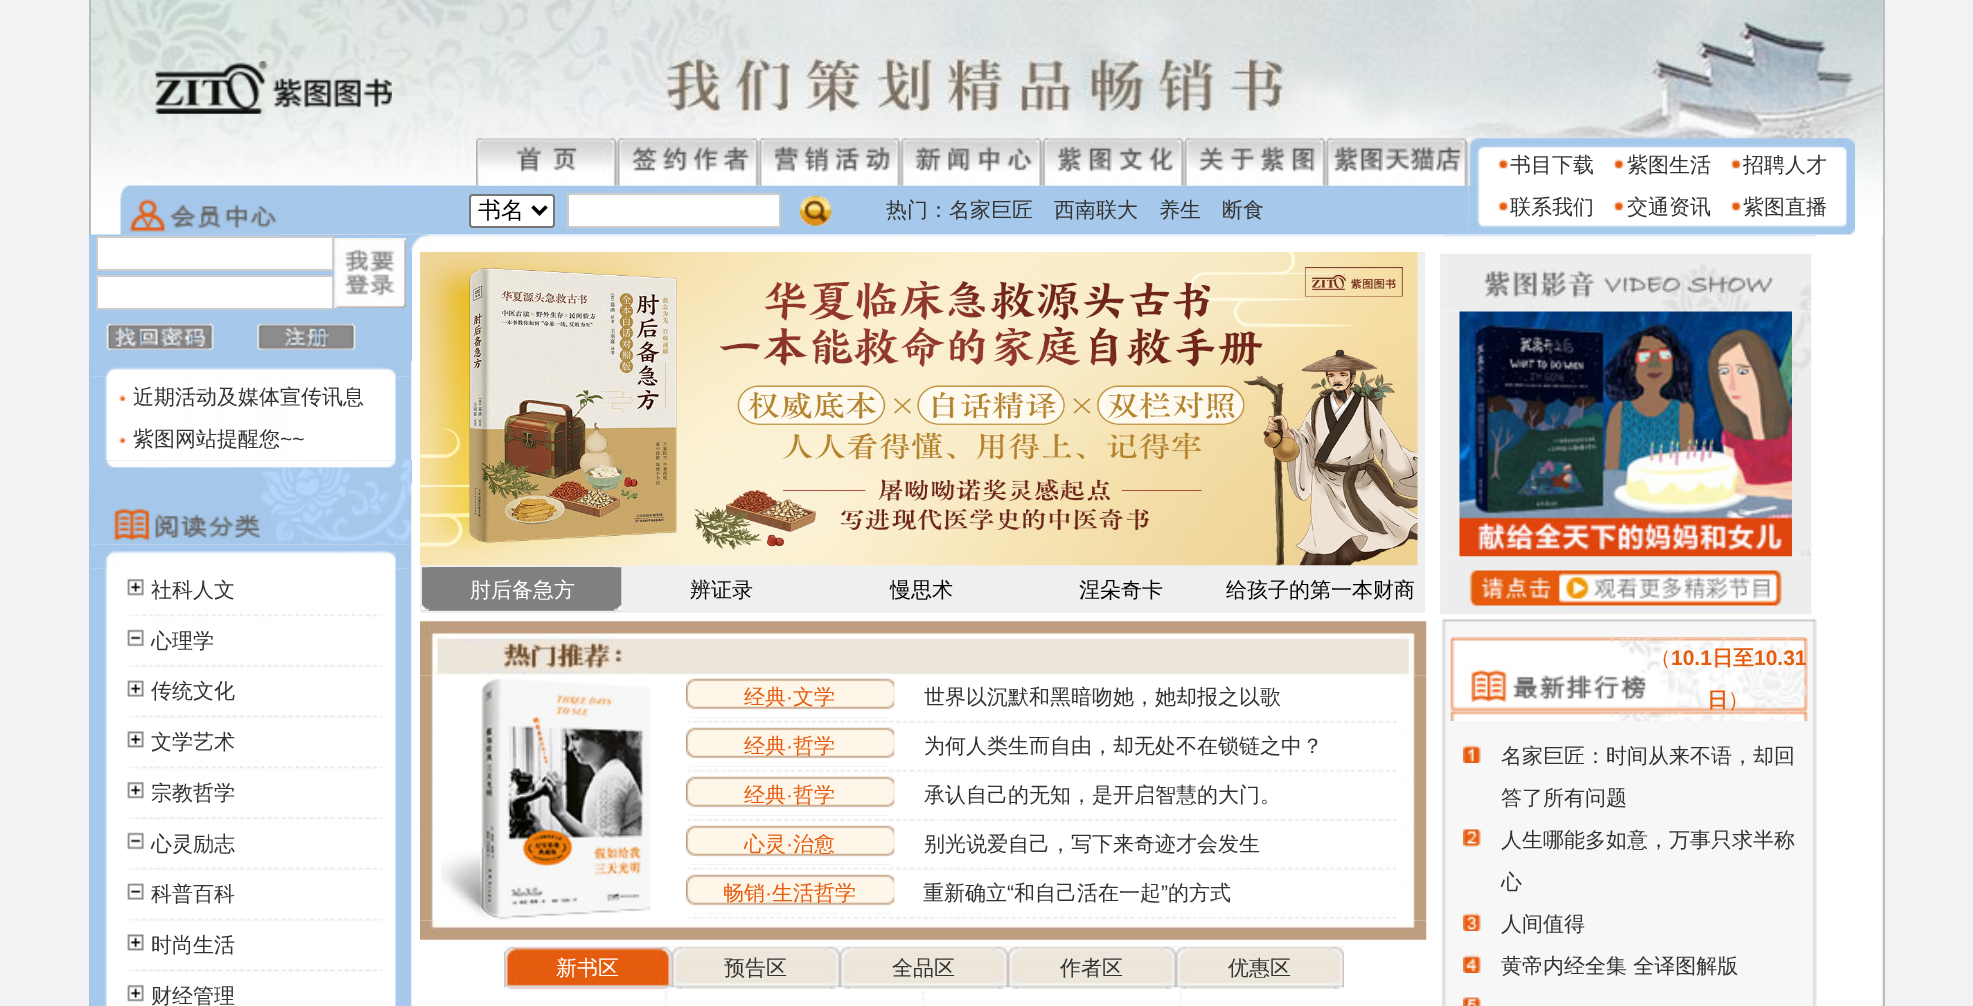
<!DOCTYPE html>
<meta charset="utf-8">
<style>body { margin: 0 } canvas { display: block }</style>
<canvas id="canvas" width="1973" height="1006"></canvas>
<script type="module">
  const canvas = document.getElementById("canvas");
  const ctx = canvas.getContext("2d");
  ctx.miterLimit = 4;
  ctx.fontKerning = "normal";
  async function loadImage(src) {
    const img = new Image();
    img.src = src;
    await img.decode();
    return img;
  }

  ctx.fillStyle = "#f2f2f4";
  ctx.fillRect(0, 0, 1973, 1006);
  ctx.drawImage(await loadImage("img1.png"), 89, 0, 1796, 1006);
  ctx.fillStyle = "#a6c8eb";
  ctx.fillRect(89, 234, 323, 127);
  ctx.drawImage(await loadImage("img2.png"), 91, 0, 1792, 235);
  ctx.drawImage(await loadImage("img3.png"), 155, 61, 237, 53);
  ctx.drawImage(await loadImage("img11.png"), 120, 185, 1349, 50);
  ctx.drawImage(await loadImage("img4.png"), 476, 138, 142, 48);
  ctx.drawImage(await loadImage("img5.png"), 617, 138, 143, 48);
  ctx.drawImage(await loadImage("img6.png"), 759, 138, 143, 48);
  ctx.drawImage(await loadImage("img7.png"), 901, 138, 142, 48);
  ctx.drawImage(await loadImage("img8.png"), 1043, 138, 142, 48);
  ctx.drawImage(await loadImage("img9.png"), 1184, 138, 143, 48);
  ctx.drawImage(await loadImage("img14.png"), 1468, 138, 387, 97);
  ctx.drawImage(await loadImage("img10.png"), 1326, 138, 143, 48);
  ctx.drawImage(await loadImage("img12.png"), 120, 197, 160, 38);
  ctx.fillStyle = "#ffffff";
  ctx.beginPath();
  ctx.roundRect(470, 195, 84, 32, 3);
  ctx.fill();
  ctx.strokeStyle = "#767676";
  ctx.lineWidth = 2;
  ctx.stroke();
  ctx.beginPath();
  ctx.moveTo(532.5, 206.5);
  ctx.lineTo(539.5, 213.5);
  ctx.lineTo(546.5, 206.5);
  ctx.strokeStyle = "#000000";
  ctx.lineWidth = 3.5;
  ctx.stroke();
  ctx.font = "500 23px WenQuanYi Zen Hei";
  ctx.fillStyle = "#000000";
  ctx.fillText("书名", 478, 218);
  ctx.fillStyle = "#ffffff";
  ctx.beginPath();
  ctx.rect(568, 194, 212, 33);
  ctx.fill();
  ctx.strokeStyle = "#cccccc";
  ctx.lineWidth = 2;
  ctx.stroke();
  ctx.drawImage(await loadImage("img13.png"), 799, 196, 33, 30);
  ctx.font = "500 21px WenQuanYi Zen Hei";
  ctx.fillStyle = "#333333";
  ctx.fillText("热门：名家巨匠", 886, 217);
  ctx.fillText("西南联大", 1054, 217);
  ctx.fillText("养生", 1159, 217);
  ctx.fillText("断食", 1222, 217);
  ctx.drawImage(await loadImage("img15.png"), 1497, 158, 12, 11);
  ctx.fillText("书目下载", 1510, 172);
  ctx.drawImage(await loadImage("img16.png"), 1612, 158, 13, 11);
  ctx.fillText("紫图生活", 1627, 172);
  ctx.drawImage(await loadImage("img17.png"), 1730, 158, 12, 11);
  ctx.fillText("招聘人才", 1743, 172);
  ctx.drawImage(await loadImage("img15.png"), 1497, 200, 12, 11);
  ctx.fillText("联系我们", 1510, 214);
  ctx.drawImage(await loadImage("img16.png"), 1612, 200, 13, 11);
  ctx.fillText("交通资讯", 1627, 214);
  ctx.drawImage(await loadImage("img17.png"), 1730, 200, 12, 11);
  ctx.fillText("紫图直播", 1743, 214);
  ctx.fillStyle = "#ffffff";
  ctx.beginPath();
  ctx.rect(97, 237, 236, 33);
  ctx.fill();
  ctx.stroke();
  ctx.drawImage(await loadImage("img18.png"), 334, 238, 72, 70);
  ctx.beginPath();
  ctx.rect(97, 276, 236, 33);
  ctx.fill();
  ctx.stroke();
  ctx.drawImage(await loadImage("img19.png"), 106, 323, 108, 27);
  ctx.drawImage(await loadImage("img20.png"), 257, 323, 99, 27);
  ctx.drawImage(await loadImage("img22.png"), 89, 376, 323, 84);
  ctx.drawImage(await loadImage("img21.png"), 89, 361, 323, 16);
  ctx.drawImage(await loadImage("img23.png"), 118, 395, 9, 7);
  ctx.fillStyle = "#333333";
  ctx.fillText("近期活动及媒体宣传讯息", 133, 404);
  ctx.drawImage(await loadImage("img23.png"), 118, 437, 9, 7);
  ctx.fillText("紫图网站提醒您", 133, 446);
  ctx.font = "21px Liberation Sans";
  ctx.fillText("~~", 280, 446);
  ctx.fillStyle = "#a6c8eb";
  ctx.fillRect(89, 460, 323, 23);
  ctx.drawImage(await loadImage("img24.png"), 106, 460, 306, 23);
  ctx.drawImage(await loadImage("img25.png"), 89, 483, 323, 62);
  ctx.drawImage(await loadImage("img27.png"), 89, 568, 323, 438);
  ctx.drawImage(await loadImage("img26.png"), 89, 544, 323, 25);
  ctx.drawImage(await loadImage("img28.png"), 127, 578, 17, 18);
  ctx.font = "500 21px WenQuanYi Zen Hei";
  ctx.fillStyle = "#333333";
  ctx.fillText("社科人文", 151, 597);
  ctx.drawImage(await loadImage("img29.png"), 129, 614, 254, 3);
  ctx.drawImage(await loadImage("img30.png"), 127, 629, 17, 18);
  ctx.fillText("心理学", 151, 648);
  ctx.drawImage(await loadImage("img31.png"), 129, 664, 254, 3);
  ctx.drawImage(await loadImage("img32.png"), 127, 680, 17, 17);
  ctx.fillText("传统文化", 151, 698);
  ctx.drawImage(await loadImage("img33.png"), 129, 715, 254, 3);
  ctx.drawImage(await loadImage("img34.png"), 127, 731, 17, 17);
  ctx.fillText("文学艺术", 151, 749);
  ctx.drawImage(await loadImage("img35.png"), 129, 766, 254, 3);
  ctx.drawImage(await loadImage("img28.png"), 127, 781, 17, 18);
  ctx.fillText("宗教哲学", 151, 800);
  ctx.drawImage(await loadImage("img29.png"), 129, 817, 254, 3);
  ctx.drawImage(await loadImage("img30.png"), 127, 832, 17, 18);
  ctx.fillText("心灵励志", 151, 851);
  ctx.drawImage(await loadImage("img31.png"), 129, 867, 254, 3);
  ctx.drawImage(await loadImage("img36.png"), 127, 883, 17, 17);
  ctx.fillText("科普百科", 151, 901);
  ctx.drawImage(await loadImage("img33.png"), 129, 918, 254, 3);
  ctx.drawImage(await loadImage("img34.png"), 127, 934, 17, 17);
  ctx.fillText("时尚生活", 151, 952);
  ctx.drawImage(await loadImage("img35.png"), 129, 969, 254, 3);
  ctx.drawImage(await loadImage("img28.png"), 127, 984, 17, 18);
  ctx.fillText("财经管理", 151, 1003);
  ctx.drawImage(await loadImage("img37.png"), 411, 234, 1406, 17);
  ctx.fillStyle = "#efefef";
  ctx.fillRect(420, 252, 1005, 361);
  ctx.drawImage(await loadImage("img38.png"), 420, 252, 998, 314);
  ctx.drawImage(await loadImage("img39.png"), 421, 567, 201, 44);
  ctx.fillStyle = "#ffffff";
  ctx.fillText("肘后备急方", 470, 597);
  ctx.fillStyle = "#000000";
  ctx.fillText("辨证录", 690, 597);
  ctx.fillText("慢思术", 890, 597);
  ctx.fillText("涅朵奇卡", 1079, 597);
  ctx.fillText("给孩子的第一本财商", 1226, 597);
  ctx.drawImage(await loadImage("img41.png"), 1440, 311, 372, 246);
  ctx.drawImage(await loadImage("img40.png"), 1440, 253, 372, 59);
  ctx.drawImage(await loadImage("img42.png"), 1459, 311, 333, 246);
  ctx.drawImage(await loadImage("img43.png"), 1440, 556, 372, 59);
  ctx.drawImage(await loadImage("img45.png"), 420, 675, 1007, 246);
  ctx.drawImage(await loadImage("img44.png"), 420, 621, 1007, 55);
  ctx.drawImage(await loadImage("img46.png"), 441, 675, 210, 246);
  ctx.drawImage(await loadImage("img47.png"), 686, 678, 209, 40);
  ctx.fillStyle = "#e65c0f";
  ctx.fillText("经典", 744, 704);
  ctx.font = "21px Liberation Sans";
  ctx.fillText("·", 786, 704);
  ctx.font = "500 21px WenQuanYi Zen Hei";
  ctx.fillText("文学", 793, 704);
  ctx.fillStyle = "#333333";
  ctx.fillText("世界以沉默和黑暗吻她，她却报之以歌", 924, 704);
  ctx.drawImage(await loadImage("img48.png"), 687, 717, 710, 6);
  ctx.drawImage(await loadImage("img49.png"), 686, 727, 209, 40);
  ctx.fillStyle = "#e65c0f";
  ctx.fillText("经典", 744, 753);
  ctx.font = "21px Liberation Sans";
  ctx.fillText("·", 786, 753);
  ctx.font = "500 21px WenQuanYi Zen Hei";
  ctx.fillText("哲学", 793, 753);
  ctx.fillStyle = "#333333";
  ctx.fillText("为何人类生而自由，却无处不在锁链之中？", 924, 753);
  ctx.drawImage(await loadImage("img48.png"), 687, 766, 710, 6);
  ctx.drawImage(await loadImage("img50.png"), 686, 776, 209, 40);
  ctx.fillStyle = "#e65c0f";
  ctx.fillText("经典", 744, 802);
  ctx.font = "21px Liberation Sans";
  ctx.fillText("·", 786, 802);
  ctx.font = "500 21px WenQuanYi Zen Hei";
  ctx.fillText("哲学", 793, 802);
  ctx.fillStyle = "#333333";
  ctx.fillText("承认自己的无知，是开启智慧的大门。", 924, 802);
  ctx.drawImage(await loadImage("img48.png"), 687, 815, 710, 6);
  ctx.drawImage(await loadImage("img50.png"), 686, 825, 209, 40);
  ctx.fillStyle = "#e65c0f";
  ctx.fillText("心灵", 744, 851);
  ctx.font = "21px Liberation Sans";
  ctx.fillText("·", 786, 851);
  ctx.font = "500 21px WenQuanYi Zen Hei";
  ctx.fillText("治愈", 793, 851);
  ctx.fillStyle = "#333333";
  ctx.fillText("别光说爱自己，写下来奇迹才会发生", 924, 851);
  ctx.drawImage(await loadImage("img51.png"), 687, 864, 710, 6);
  ctx.drawImage(await loadImage("img50.png"), 686, 874, 209, 40);
  ctx.fillStyle = "#e65c0f";
  ctx.fillText("畅销", 723, 900);
  ctx.font = "21px Liberation Sans";
  ctx.fillText("·", 765, 900);
  ctx.font = "500 21px WenQuanYi Zen Hei";
  ctx.fillText("生活哲学", 772, 900);
  ctx.fillStyle = "#333333";
  ctx.fillText("重新确立", 923, 900);
  ctx.font = "21px Liberation Sans";
  ctx.fillText("“", 1007, 900);
  ctx.font = "500 21px WenQuanYi Zen Hei";
  ctx.fillText("和自己活在一起", 1014, 900);
  ctx.font = "21px Liberation Sans";
  ctx.fillText("”", 1161, 900);
  ctx.font = "500 21px WenQuanYi Zen Hei";
  ctx.fillText("的方式", 1168, 900);
  ctx.drawImage(await loadImage("img48.png"), 687, 913, 710, 6);
  ctx.drawImage(await loadImage("img52.png"), 420, 920, 1007, 20);
  ctx.drawImage(await loadImage("img53.png"), 504, 946, 168, 43);
  ctx.fillStyle = "#ffffff";
  ctx.fillText("新书区", 556, 975);
  ctx.drawImage(await loadImage("img54.png"), 672, 946, 168, 43);
  ctx.fillStyle = "#333333";
  ctx.fillText("预告区", 724, 975);
  ctx.drawImage(await loadImage("img55.png"), 840, 946, 168, 43);
  ctx.fillText("全品区", 892, 975);
  ctx.drawImage(await loadImage("img56.png"), 1008, 946, 168, 43);
  ctx.fillText("作者区", 1060, 975);
  ctx.drawImage(await loadImage("img57.png"), 1176, 946, 168, 43);
  ctx.fillText("优惠区", 1228, 975);
  ctx.drawImage(await loadImage("img58.png"), 663, 988, 5, 18);
  ctx.drawImage(await loadImage("img59.png"), 921, 988, 5, 18);
  ctx.drawImage(await loadImage("img60.png"), 1179, 988, 4, 18);
  ctx.drawImage(await loadImage("img61.png"), 1442, 617, 375, 389);
  ctx.drawImage(await loadImage("img62.png"), 1442, 618, 375, 5);
  ctx.drawImage(await loadImage("img63.png"), 1450, 637, 358, 84);
  ctx.fillStyle = "#e65c0f";
  ctx.fillText("（", 1650, 665);
  ctx.font = "bold 21px Liberation Sans";
  ctx.fillText("10.1", 1671, 665);
  ctx.font = "bold 21px WenQuanYi Zen Hei";
  ctx.fillText("日至", 1712, 665);
  ctx.font = "bold 21px Liberation Sans";
  ctx.fillText("10.31", 1754, 665);
  ctx.font = "bold 21px WenQuanYi Zen Hei";
  ctx.fillText("日", 1707, 707);
  ctx.font = "500 21px WenQuanYi Zen Hei";
  ctx.fillText("）", 1728, 707);
  ctx.drawImage(await loadImage("img64.png"), 1463, 745, 18, 18);
  ctx.fillStyle = "#333333";
  ctx.fillText("名家巨匠：时间从来不语，却回", 1501, 763);
  ctx.fillText("答了所有问题", 1501, 805);
  ctx.drawImage(await loadImage("img65.png"), 1463, 829, 18, 18);
  ctx.fillText("人生哪能多如意，万事只求半称", 1501, 847);
  ctx.fillText("心", 1501, 889);
  ctx.drawImage(await loadImage("img66.png"), 1463, 913, 18, 18);
  ctx.fillText("人间值得", 1501, 931);
  ctx.drawImage(await loadImage("img67.png"), 1463, 955, 18, 18);
  ctx.fillText("黄帝内经全集 全译图解版", 1501, 973);
  ctx.drawImage(await loadImage("img68.png"), 1463, 997, 18, 9);
</script>
